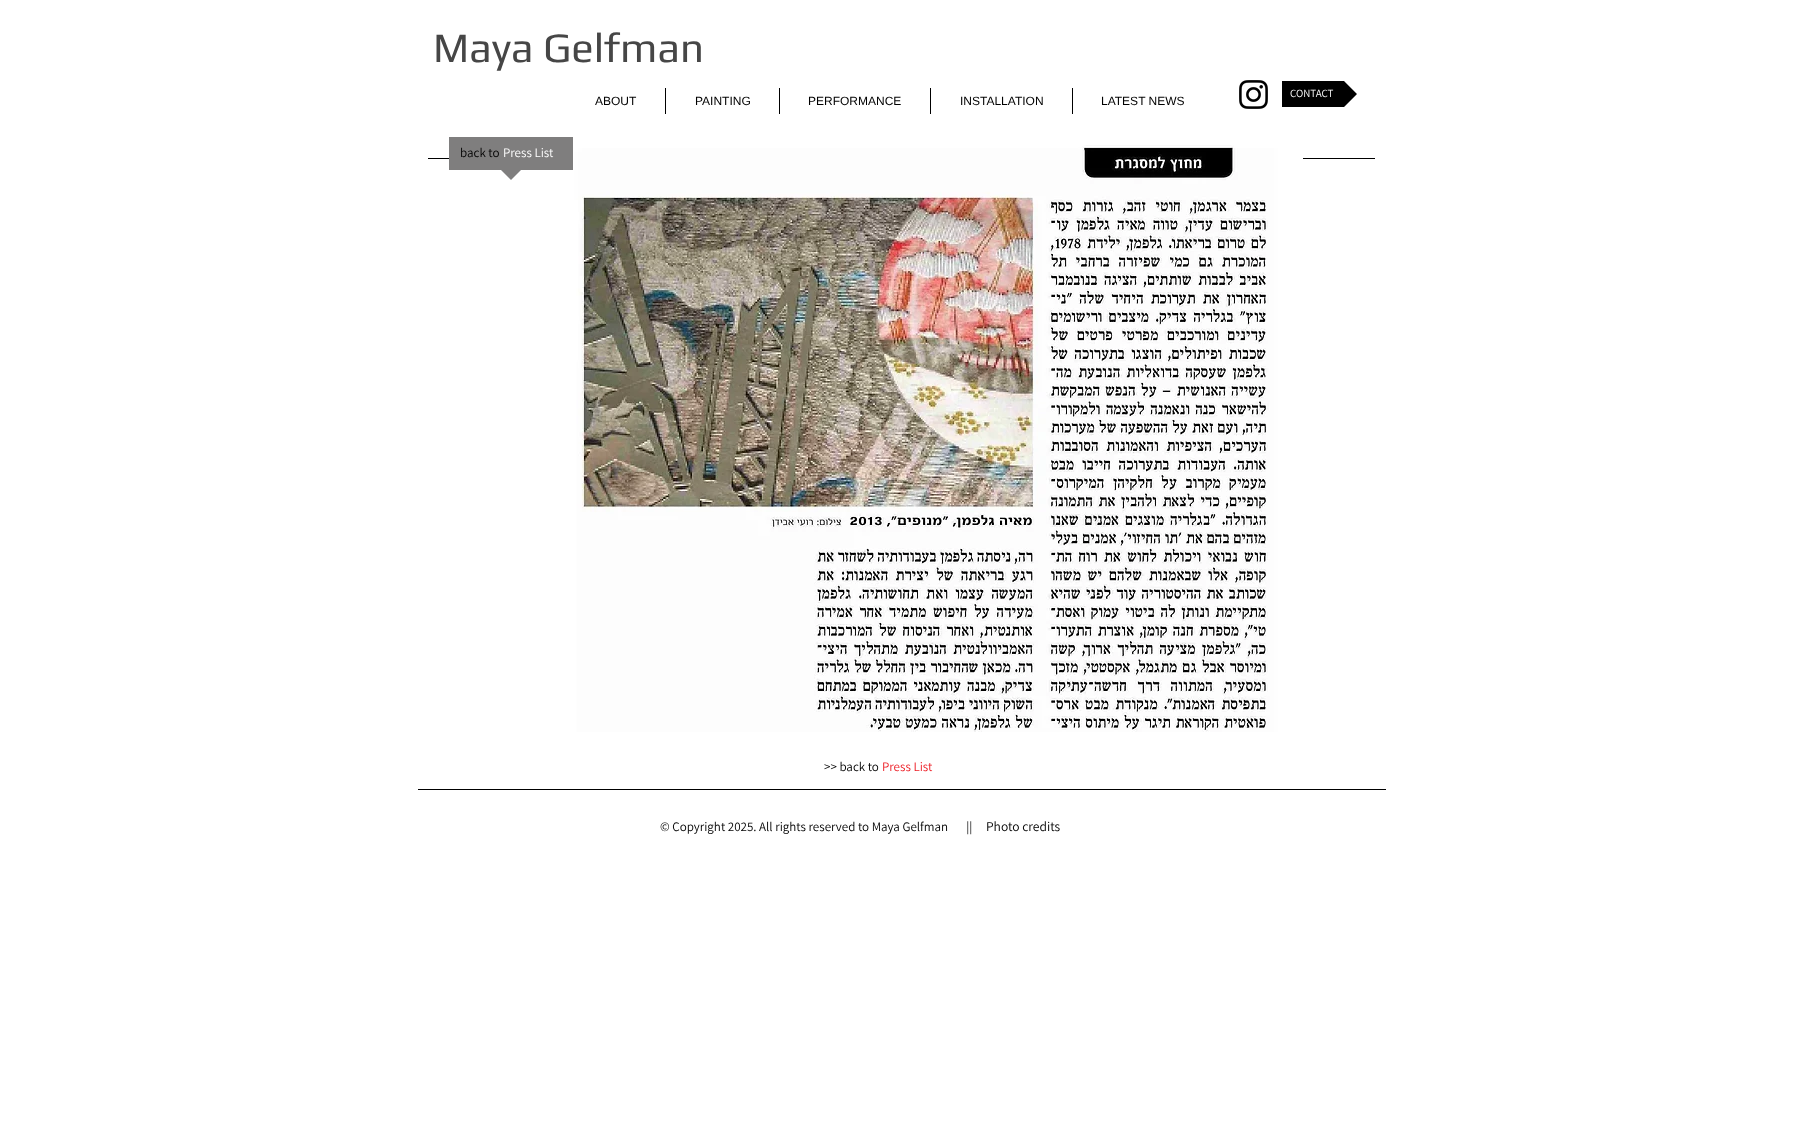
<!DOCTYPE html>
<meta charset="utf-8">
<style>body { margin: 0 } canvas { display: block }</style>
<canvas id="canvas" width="1804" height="1147"></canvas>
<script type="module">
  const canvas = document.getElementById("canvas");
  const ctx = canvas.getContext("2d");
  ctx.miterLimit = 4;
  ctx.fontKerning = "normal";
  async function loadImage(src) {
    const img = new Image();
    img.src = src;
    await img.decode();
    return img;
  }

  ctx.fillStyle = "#ffffff";
  ctx.fillRect(0, 0, 1804, 1147);
  ctx.font = "42px Play";
  ctx.fillStyle = "#464646";
  ctx.fillText("Maya Gelfman", 433, 62);
  ctx.drawImage(await loadImage("img1.png"), 1239, 80, 29, 29);
  ctx.fillStyle = "#000000";
  ctx.fillRect(1282, 81, 25, 26);
  ctx.save();
  ctx.beginPath();
  ctx.rect(1282, 81, 75, 26);
  ctx.clip();
  ctx.beginPath();
  ctx.moveTo(1357, 94);
  ctx.lineTo(1307, 94);
  ctx.lineTo(1307, 44);
  ctx.closePath();
  ctx.moveTo(1307, 94);
  ctx.lineTo(1357, 94);
  ctx.lineTo(1307, 144);
  ctx.closePath();
  ctx.fill();
  ctx.restore();
  ctx.font = "11px Assistant";
  ctx.fillStyle = "#ffffff";
  ctx.fillText("CONTACT", 1290, 97);
  ctx.font = "12px Liberation Sans";
  ctx.fillStyle = "#000000";
  ctx.fillText("ABOUT", 595, 105);
  ctx.fillRect(665, 88, 1, 26);
  ctx.fillText("PAINTING", 695, 105);
  ctx.fillRect(779, 88, 1, 26);
  ctx.fillText("PERFORMANCE", 808, 105);
  ctx.fillRect(930, 88, 1, 26);
  ctx.fillText("INSTALLATION", 960, 105);
  ctx.fillRect(1072, 88, 1, 26);
  ctx.fillText("LATEST NEWS", 1101, 105);
  ctx.fillRect(428, 158, 947, 1);
  ctx.drawImage(await loadImage("img2.png"), 550, 145, 753, 587);
  ctx.fillStyle = "#7f7e7e";
  ctx.fillRect(449, 137, 124, 33);
  ctx.font = "13px Assistant";
  ctx.fillStyle = "#000000";
  ctx.fillText("back to", 460, 157);
  ctx.fillStyle = "#ffffff";
  ctx.fillText("Press List", 503, 157);
  ctx.fillStyle = "#7f7e7e";
  ctx.beginPath();
  ctx.moveTo(501, 170);
  ctx.lineTo(521, 170);
  ctx.lineTo(511, 180);
  ctx.closePath();
  ctx.fill();
  ctx.fillStyle = "#000000";
  ctx.fillText(">> back to", 824, 771);
  ctx.fillStyle = "#ed1c24";
  ctx.fillText("Press List", 882, 771);
  ctx.fillStyle = "#000000";
  ctx.fillRect(418, 789, 968, 1);
  ctx.fillText("© Copyright 2025. All rights reserved to Maya Gelfman       ||", 660, 831);
  ctx.font = "13.5px Assistant";
  ctx.fillText("Photo credits", 986, 831);
</script>
